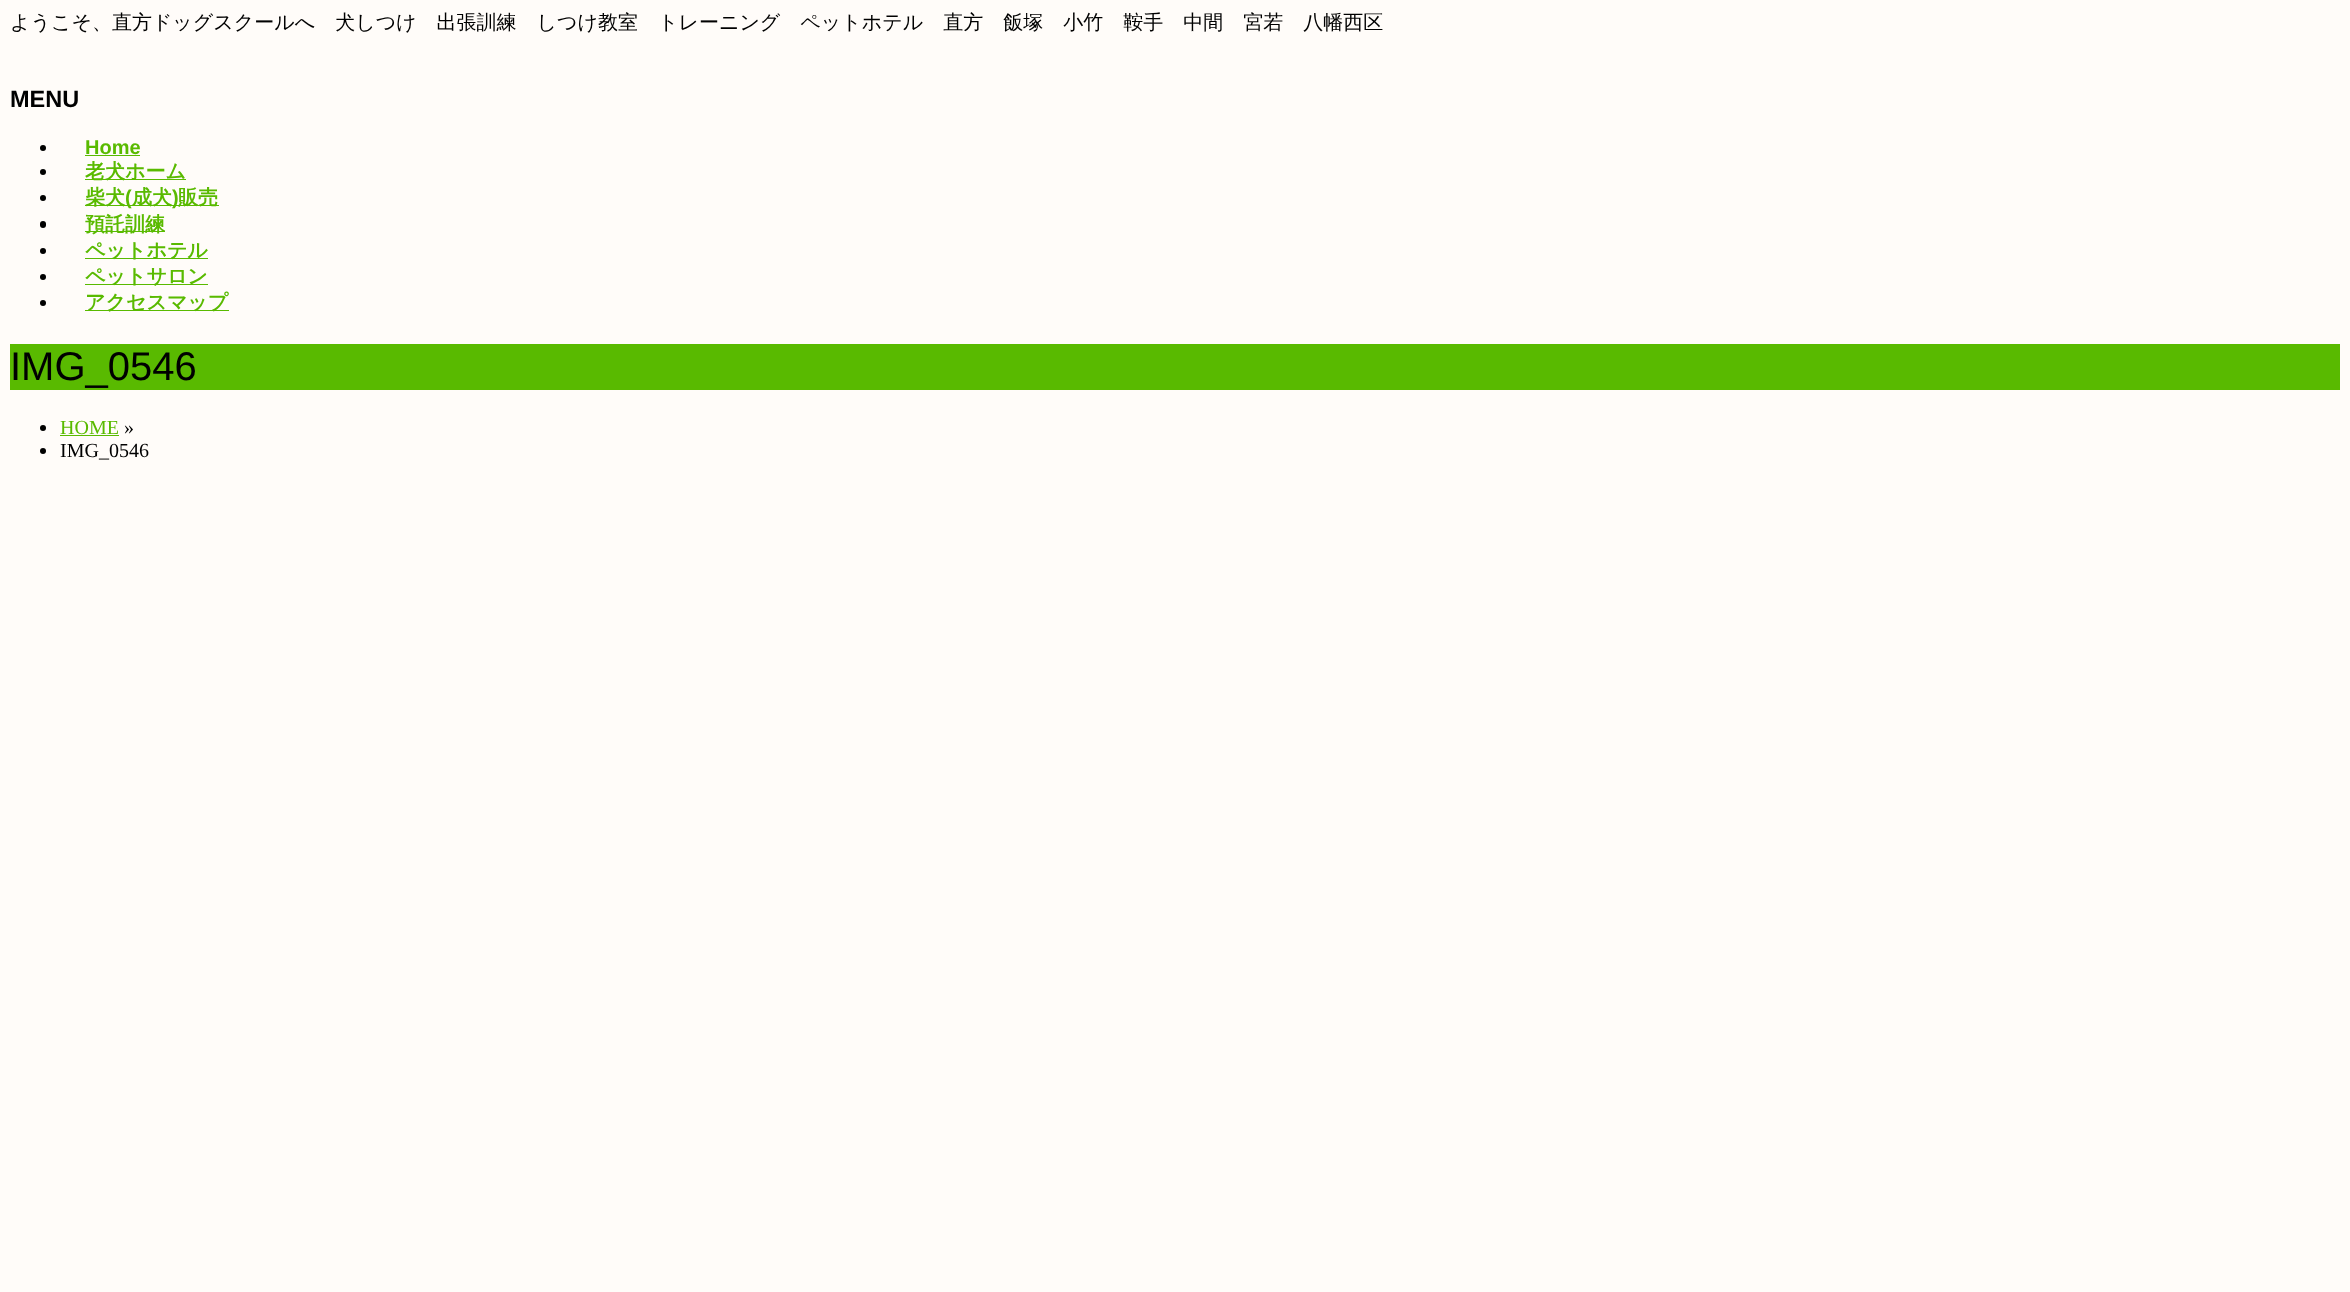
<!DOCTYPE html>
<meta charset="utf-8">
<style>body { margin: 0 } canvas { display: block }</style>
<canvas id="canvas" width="2350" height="1292"></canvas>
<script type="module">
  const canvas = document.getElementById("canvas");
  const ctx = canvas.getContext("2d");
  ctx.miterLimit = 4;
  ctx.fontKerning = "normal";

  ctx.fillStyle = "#fffcf9";
  ctx.fillRect(0, 0, 2350, 1292);
  ctx.font = "500 20px WenQuanYi Zen Hei";
  ctx.fillStyle = "#000000";
  ctx.fillText("ようこそ、直方ドッグスクールへ　犬しつけ　出張訓練　しつけ教室　トレーニング　ペットホテル　直方　飯塚　小竹　鞍手　中間　宮若　八幡西区", 10, 29);
  ctx.font = "bold 23.5px Liberation Sans";
  ctx.fillText("MENU", 10, 107);
  ctx.beginPath();
  ctx.arc(43, 148, 3, 0, Math.PI * 2);
  ctx.fill();
  ctx.font = "bold 20px Liberation Sans";
  ctx.fillStyle = "#59ba00";
  ctx.fillText("Home", 85, 154);
  ctx.fillRect(85, 155, 55, 1);
  ctx.fillStyle = "#000000";
  ctx.beginPath();
  ctx.arc(43, 172, 3, 0, Math.PI * 2);
  ctx.fill();
  ctx.fillStyle = "#59ba00";
  ctx.fillRect(85, 179, 101, 1);
  ctx.font = "bold 20px WenQuanYi Zen Hei";
  ctx.fillText("老犬ホーム", 85, 178);
  ctx.fillStyle = "#000000";
  ctx.beginPath();
  ctx.arc(43, 198, 3, 0, Math.PI * 2);
  ctx.fill();
  ctx.fillStyle = "#59ba00";
  ctx.fillRect(85, 205, 134, 1);
  ctx.fillText("柴犬", 85, 204);
  ctx.font = "bold 20px Liberation Sans";
  ctx.fillText("(", 125, 204);
  ctx.font = "bold 20px WenQuanYi Zen Hei";
  ctx.fillText("成犬", 132, 204);
  ctx.font = "bold 20px Liberation Sans";
  ctx.fillText(")", 172, 204);
  ctx.font = "bold 20px WenQuanYi Zen Hei";
  ctx.fillText("販売", 178, 204);
  ctx.fillStyle = "#000000";
  ctx.beginPath();
  ctx.roundRect(40, 221, 6, 7, 3);
  ctx.fill();
  ctx.fillStyle = "#59ba00";
  ctx.fillRect(85, 231, 80, 1);
  ctx.fillText("預託訓練", 85, 231);
  ctx.fillStyle = "#000000";
  ctx.beginPath();
  ctx.arc(43, 251, 3, 0, Math.PI * 2);
  ctx.fill();
  ctx.fillStyle = "#59ba00";
  ctx.fillRect(85, 258, 123, 1);
  ctx.fillText("ペットホテル", 85, 257);
  ctx.fillStyle = "#000000";
  ctx.beginPath();
  ctx.arc(43, 277, 3, 0, Math.PI * 2);
  ctx.fill();
  ctx.fillStyle = "#59ba00";
  ctx.fillRect(85, 284, 123, 1);
  ctx.fillText("ペットサロン", 85, 283);
  ctx.fillStyle = "#000000";
  ctx.beginPath();
  ctx.arc(43, 303, 3, 0, Math.PI * 2);
  ctx.fill();
  ctx.fillStyle = "#59ba00";
  ctx.fillRect(85, 310, 144, 1);
  ctx.fillText("アクセスマップ", 85, 309);
  ctx.fillRect(10, 344, 2330, 46);
  ctx.font = "40px Liberation Sans";
  ctx.fillStyle = "#000000";
  ctx.fillText("IMG_0546", 10, 380);
  ctx.beginPath();
  ctx.arc(43, 428, 3, 0, Math.PI * 2);
  ctx.fill();
  ctx.font = "20px Liberation Serif";
  ctx.fillStyle = "#59ba00";
  ctx.fillText("HOME", 60, 434);
  ctx.fillRect(60, 435, 59, 1);
  ctx.fillStyle = "#000000";
  ctx.fillText("»", 124, 434);
  ctx.beginPath();
  ctx.arc(43, 451, 3, 0, Math.PI * 2);
  ctx.fill();
  ctx.fillText("IMG_0546", 60, 457);
</script>
